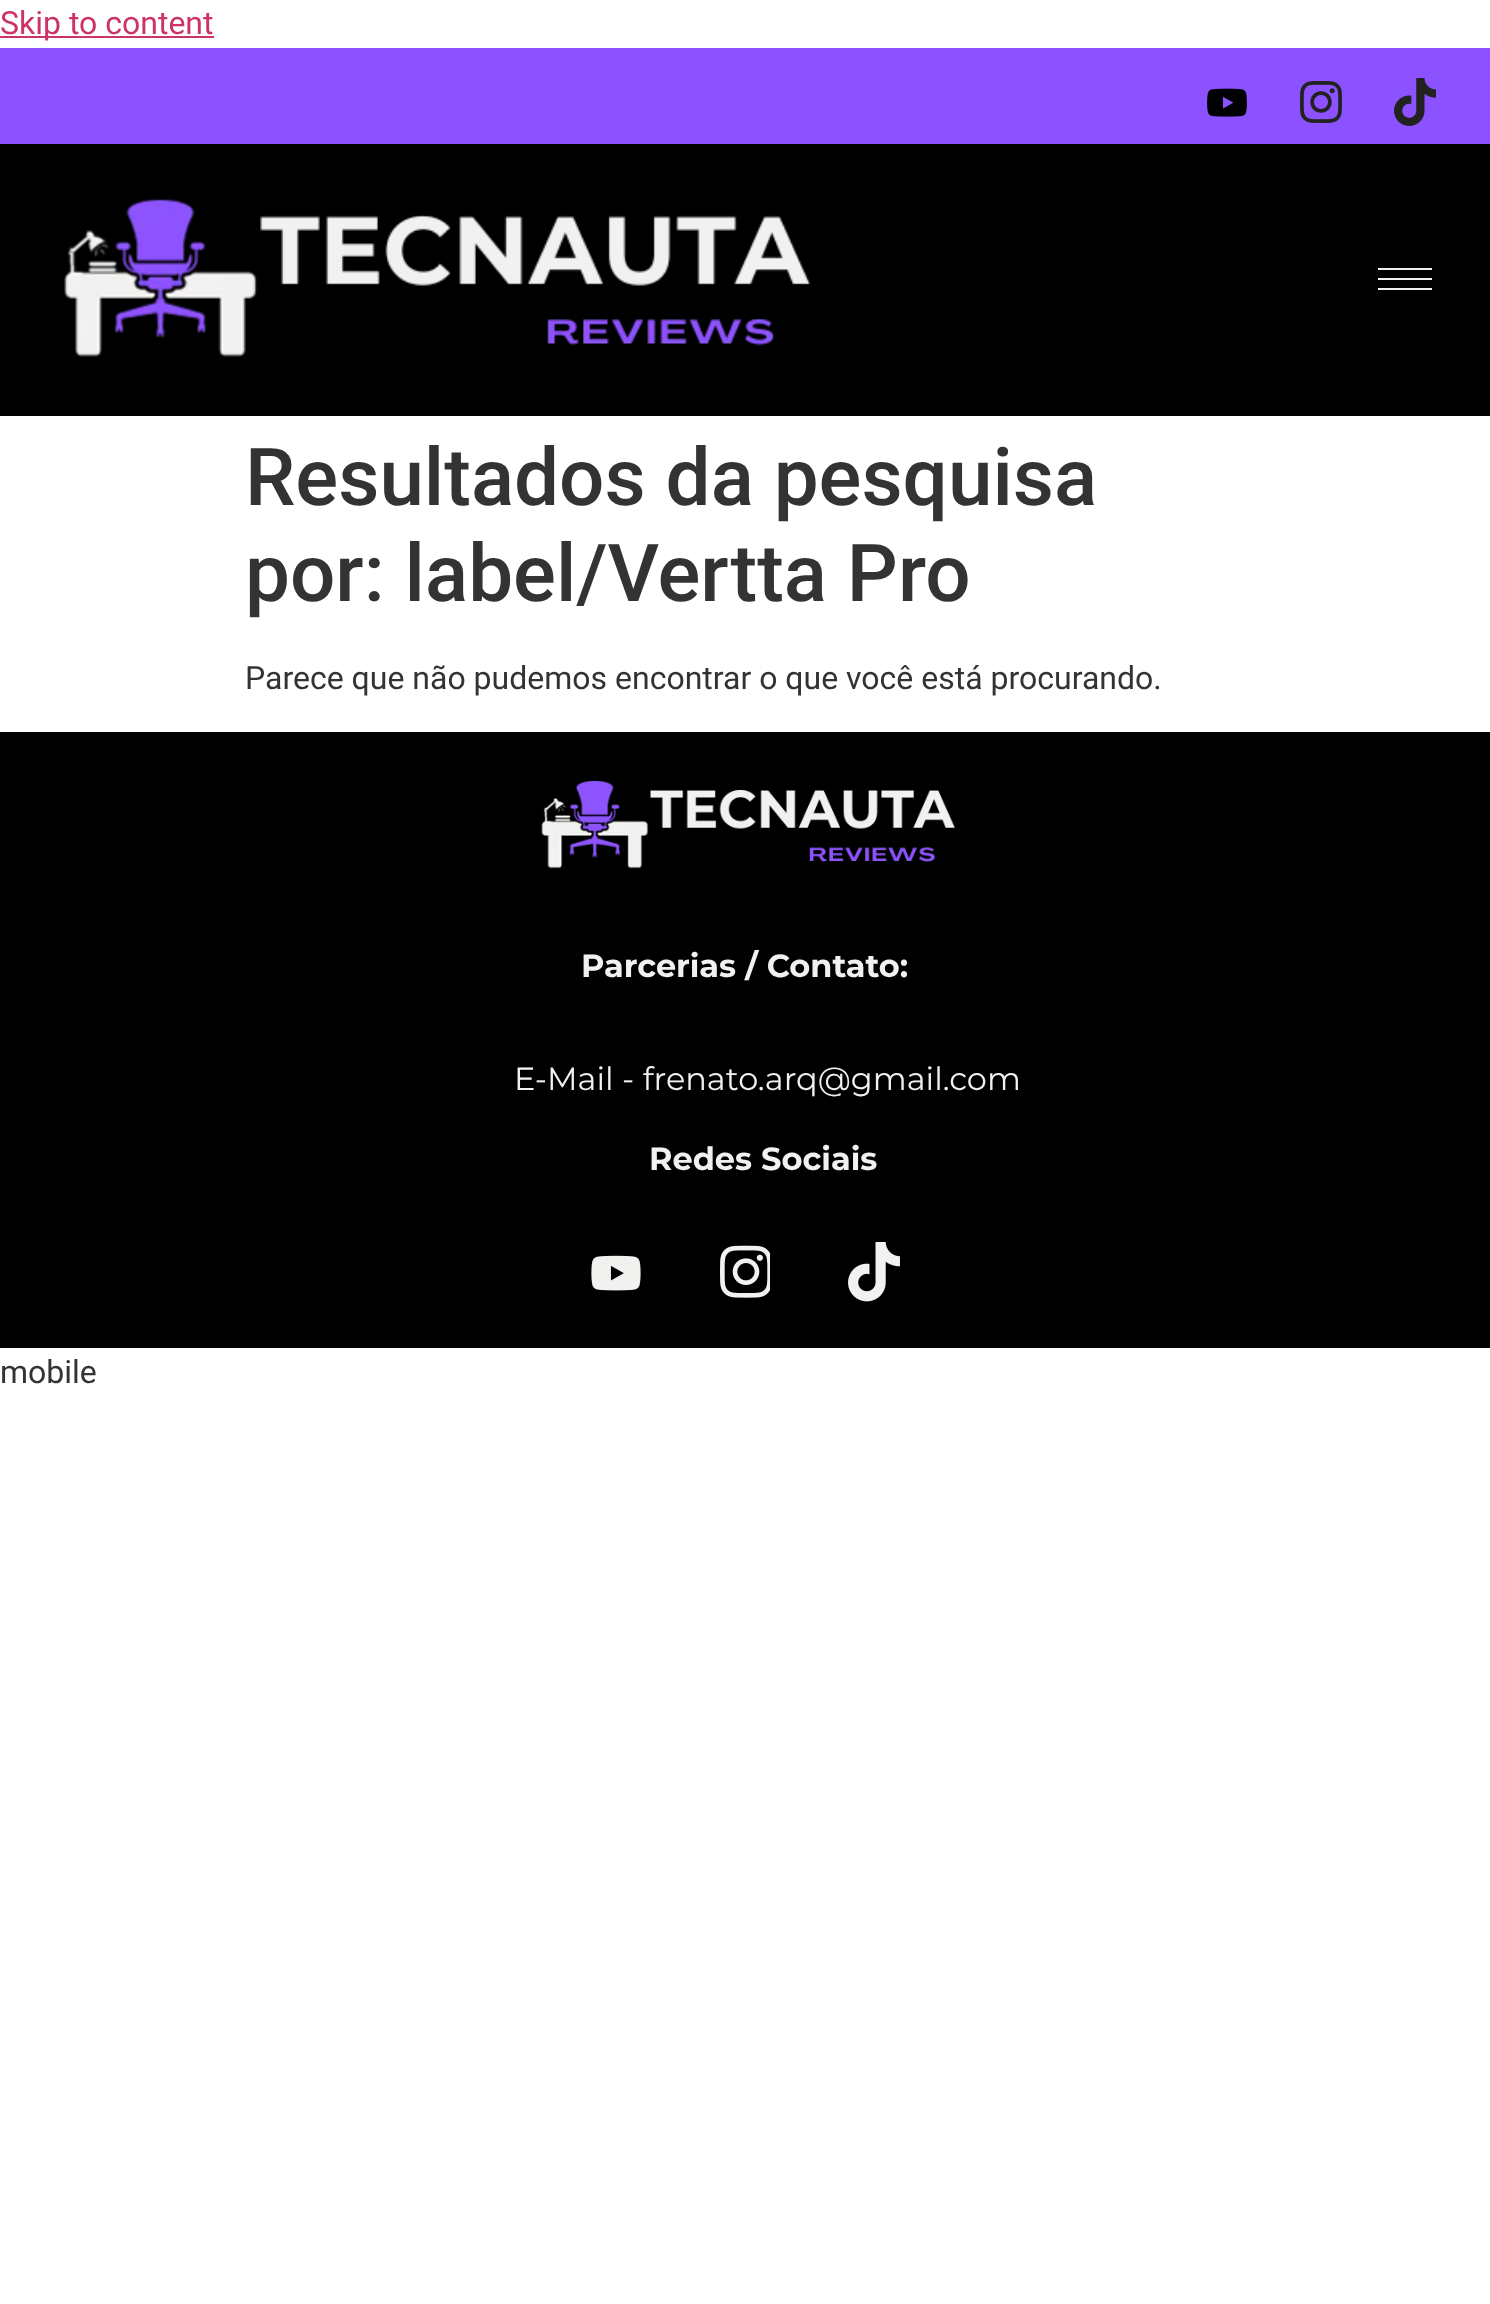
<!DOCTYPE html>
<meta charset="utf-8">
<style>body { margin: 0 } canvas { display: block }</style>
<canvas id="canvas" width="1490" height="2304"></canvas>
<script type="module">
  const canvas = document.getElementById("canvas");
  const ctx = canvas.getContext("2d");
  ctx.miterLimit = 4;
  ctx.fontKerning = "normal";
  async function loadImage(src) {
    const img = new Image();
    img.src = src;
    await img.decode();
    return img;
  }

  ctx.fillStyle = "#ffffff";
  ctx.fillRect(0, 0, 1490, 2304);
  ctx.fillStyle = "#cc3366";
  ctx.fillRect(0, 36, 214, 2);
  ctx.font = "32px Roboto";
  ctx.fillText("Skip to content", 0, 34);
  ctx.fillStyle = "#8c52ff";
  ctx.fillRect(0, 48, 1490, 96);
  ctx.drawImage(await loadImage("img1.png"), 1207, 88, 40, 29);
  ctx.drawImage(await loadImage("img2.png"), 1300, 81, 42, 42);
  ctx.drawImage(await loadImage("img3.png"), 1394, 78, 42, 48);
  ctx.fillStyle = "#000000";
  ctx.fillRect(0, 144, 1490, 272);
  ctx.drawImage(await loadImage("img4.png"), 64, 198, 747, 159);
  ctx.fillStyle = "#f1f1f0";
  ctx.fillRect(1378, 268, 54, 2);
  ctx.fillRect(1378, 278, 54, 2);
  ctx.fillRect(1378, 288, 54, 2);
  ctx.font = "500 80px Roboto";
  ctx.fillStyle = "#333333";
  ctx.fillText("Resultados da pesquisa", 245, 505);
  ctx.fillText("por: label/Vertta Pro", 245, 601);
  ctx.font = "32px Roboto";
  ctx.fillText("Parece que não pudemos encontrar o que você está procurando.", 245, 689);
  ctx.fillStyle = "#000000";
  ctx.fillRect(0, 732, 1490, 616);
  ctx.drawImage(await loadImage("img5.png"), 541, 780, 414, 89);
  ctx.font = "bold 32px Montserrat";
  ctx.fillStyle = "#f1f1f0";
  ctx.fillText("Parcerias / Contato:", 581, 977);
  ctx.font = "32px Montserrat";
  ctx.fillText("E-Mail - frenato.arq@gmail.com", 514, 1090);
  ctx.font = "bold 32px Montserrat";
  ctx.fillText("Redes Sociais", 649, 1170);
  ctx.drawImage(await loadImage("img6.png"), 591, 1255, 50, 36);
  ctx.drawImage(await loadImage("img7.png"), 720, 1245, 50, 53);
  ctx.drawImage(await loadImage("img8.png"), 848, 1242, 52, 60);
  ctx.font = "32px Roboto";
  ctx.fillStyle = "#333333";
  ctx.fillText("mobile", 0, 1383);
</script>
